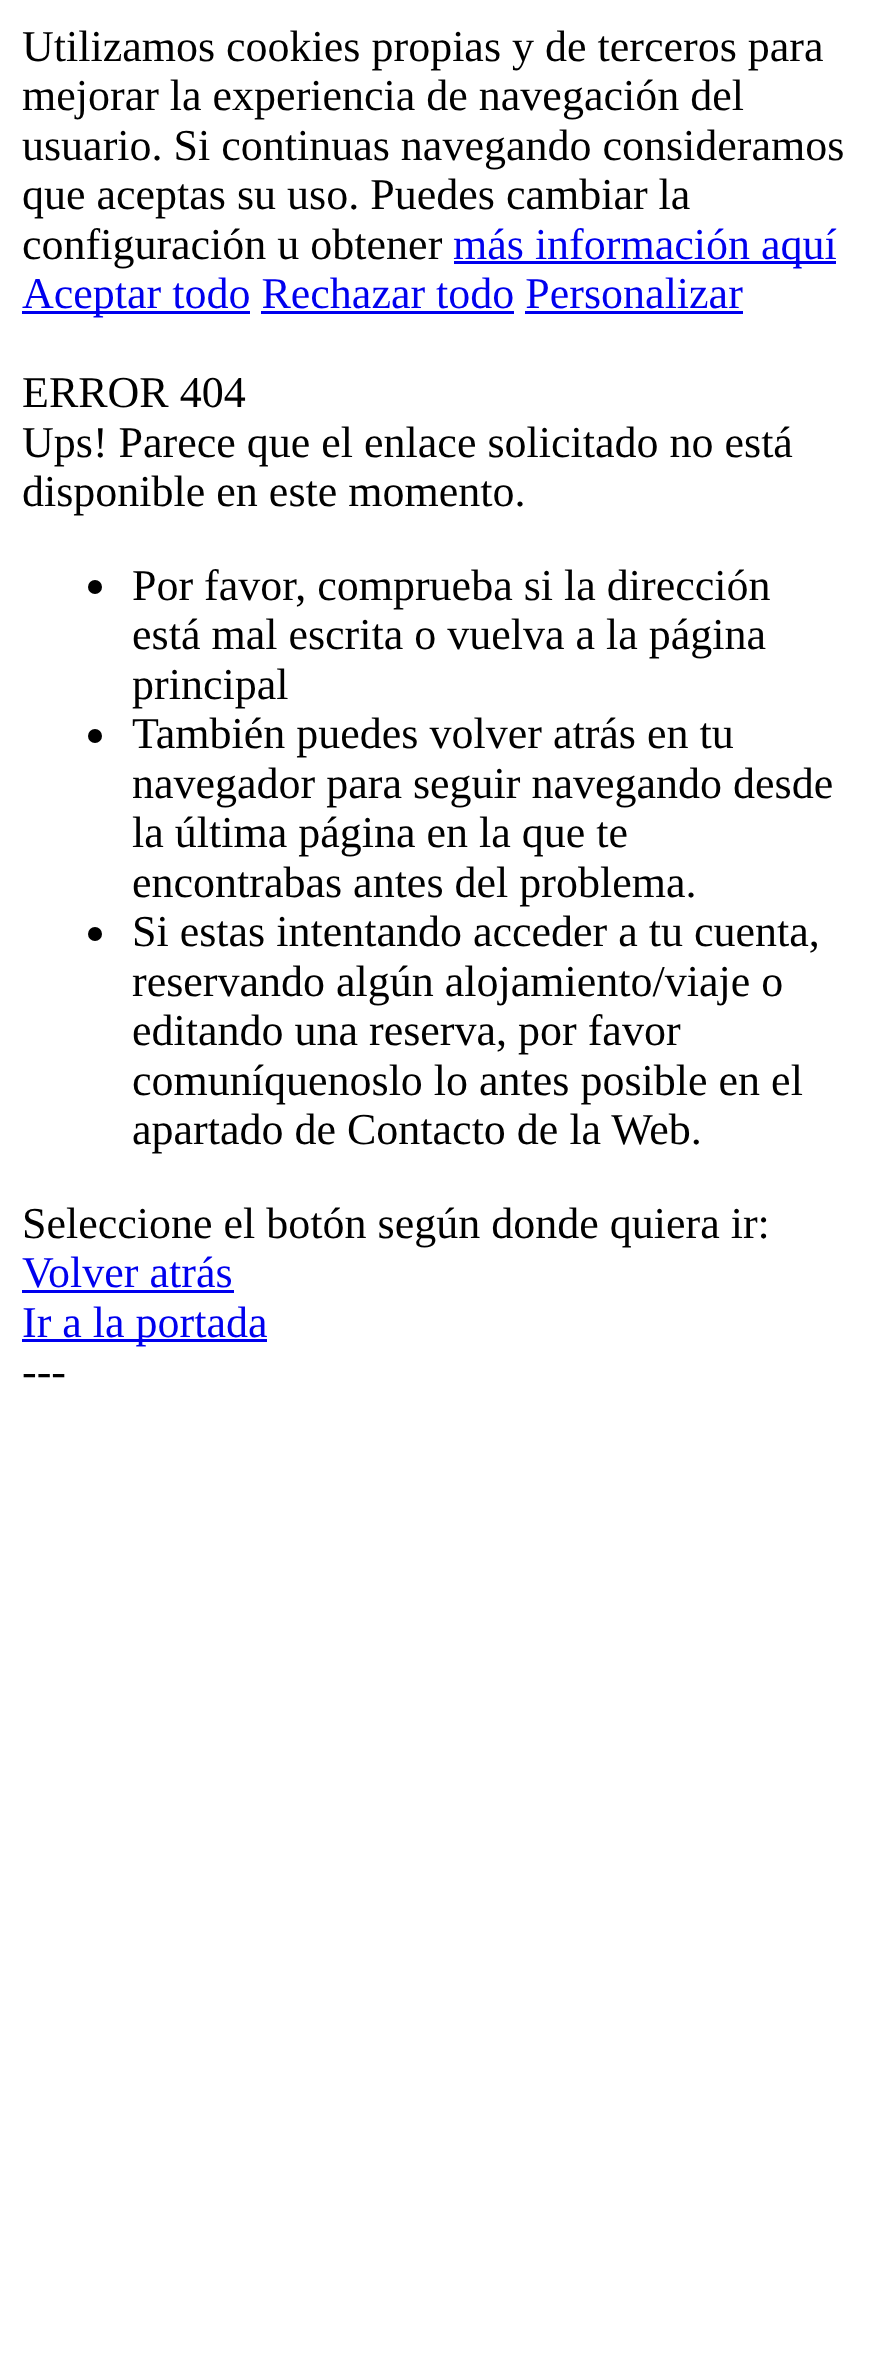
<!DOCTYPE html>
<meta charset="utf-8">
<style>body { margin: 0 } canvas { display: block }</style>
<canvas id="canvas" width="869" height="2369"></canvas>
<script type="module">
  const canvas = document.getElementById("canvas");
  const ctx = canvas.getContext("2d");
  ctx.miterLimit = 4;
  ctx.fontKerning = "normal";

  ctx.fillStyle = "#ffffff";
  ctx.fillRect(0, 0, 869, 2369);
  ctx.font = "44px Liberation Serif";
  ctx.fillStyle = "#000000";
  ctx.fillText("Utilizamos cookies propias y de terceros para", 22, 61);
  ctx.fillText("mejorar la experiencia de navegación del", 22, 110);
  ctx.fillText("usuario. Si continuas navegando consideramos", 22, 160);
  ctx.fillText("que aceptas su uso. Puedes cambiar la", 22, 209);
  ctx.fillText("configuración u obtener", 22, 259);
  ctx.fillStyle = "#0000ee";
  ctx.fillRect(454, 261, 382, 3);
  ctx.fillText("más información aquí", 453, 259);
  ctx.fillRect(22, 311, 228, 3);
  ctx.fillText("Aceptar todo Rechazar todo Personalizar", 22, 308);
  ctx.fillRect(261, 311, 253, 3);
  ctx.fillRect(525, 311, 218, 3);
  ctx.fillStyle = "#000000";
  ctx.fillText("ERROR 404", 22, 407);
  ctx.fillText("Ups! Parece que el enlace solicitado no está", 22, 457);
  ctx.fillText("disponible en este momento.", 22, 506);
  ctx.beginPath();
  ctx.arc(95, 587, 7, 0, Math.PI * 2);
  ctx.fill();
  ctx.fillText("Por favor, comprueba si la dirección", 132, 600);
  ctx.fillText("está mal escrita o vuelva a la página", 132, 649);
  ctx.fillText("principal", 132, 699);
  ctx.beginPath();
  ctx.arc(95, 736, 7, 0, Math.PI * 2);
  ctx.fill();
  ctx.fillText("También puedes volver atrás en tu", 132, 748);
  ctx.fillText("navegador para seguir navegando desde", 132, 798);
  ctx.fillText("la última página en la que te", 132, 847);
  ctx.fillText("encontrabas antes del problema.", 132, 897);
  ctx.beginPath();
  ctx.arc(95, 934, 7, 0, Math.PI * 2);
  ctx.fill();
  ctx.fillText("Si estas intentando acceder a tu cuenta,", 132, 946);
  ctx.fillText("reservando algún alojamiento/viaje o", 132, 996);
  ctx.fillText("editando una reserva, por favor", 132, 1045);
  ctx.fillText("comuníquenoslo lo antes posible en el", 132, 1095);
  ctx.fillText("apartado de Contacto de la Web.", 132, 1144);
  ctx.fillText("Seleccione el botón según donde quiera ir:", 22, 1238);
  ctx.fillStyle = "#0000ee";
  ctx.fillText("Volver atrás", 22, 1287);
  ctx.fillRect(22, 1290, 212, 3);
  ctx.fillRect(22, 1339, 245, 3);
  ctx.fillText("Ir a la portada", 22, 1337);
  ctx.fillStyle = "#000000";
  ctx.fillText("---", 22, 1386);
</script>
